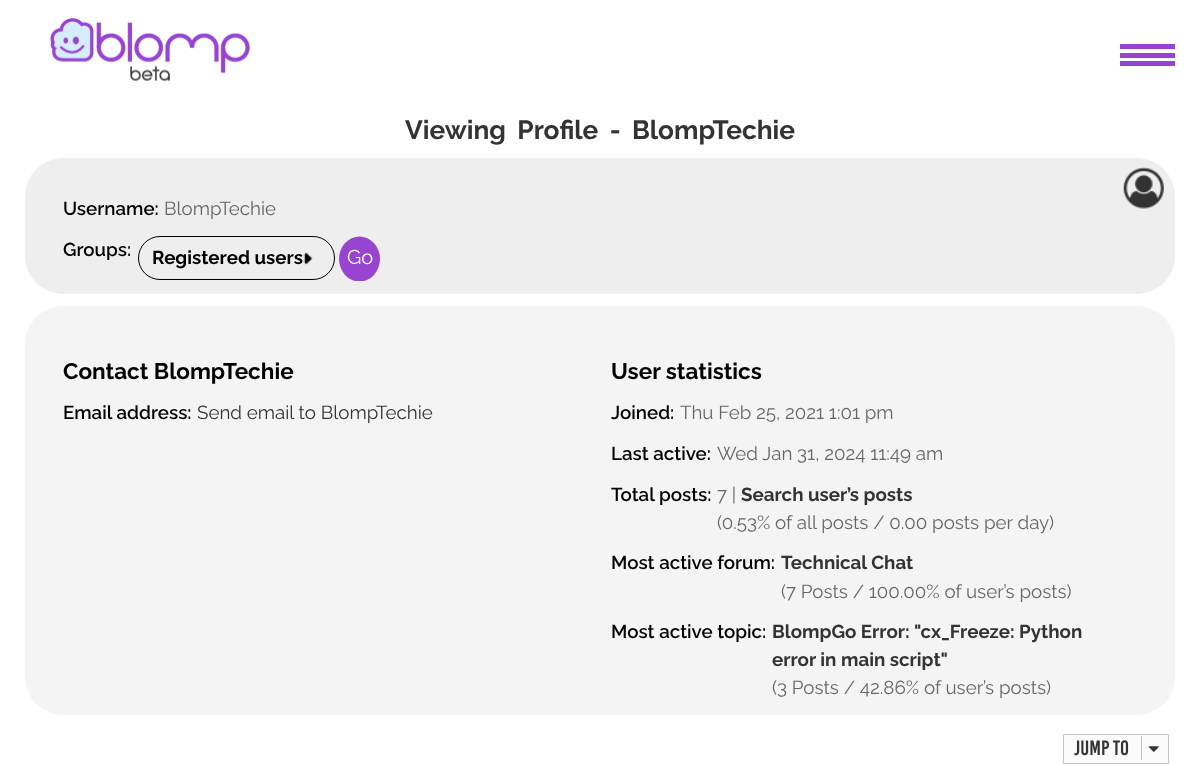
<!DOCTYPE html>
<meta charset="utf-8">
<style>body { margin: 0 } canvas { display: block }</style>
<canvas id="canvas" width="1199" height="764"></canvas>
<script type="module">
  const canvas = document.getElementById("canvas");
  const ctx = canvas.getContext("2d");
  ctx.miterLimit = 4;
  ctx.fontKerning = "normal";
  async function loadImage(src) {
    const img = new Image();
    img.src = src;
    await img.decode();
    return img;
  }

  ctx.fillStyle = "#ffffff";
  ctx.fillRect(0, 0, 1199, 764);
  ctx.drawImage(await loadImage("img1.png"), 50, 18, 200, 63);
  ctx.fillStyle = "#9744d0";
  ctx.fillRect(1120, 44, 55, 5);
  ctx.fillRect(1120, 53, 55, 5);
  ctx.fillRect(1120, 61, 55, 5);
  ctx.wordSpacing = "5px";
  ctx.font = "bold 26.25px Raleway";
  ctx.fillStyle = "#333333";
  ctx.fillText("Viewing Profile - BlompTechie", 405, 139);
  ctx.fillStyle = "#eeeeee";
  ctx.beginPath();
  ctx.roundRect(25, 158, 1150, 136, 38);
  ctx.fill();
  ctx.drawImage(await loadImage("img2.png"), 1123, 167, 41, 42);
  ctx.wordSpacing = "0px";
  ctx.font = "600 18.75px Raleway";
  ctx.fillStyle = "#000000";
  ctx.fillText("Username:", 63, 215);
  ctx.font = "18.75px Raleway";
  ctx.fillStyle = "#666666";
  ctx.fillText("BlompTechie", 164, 215);
  ctx.font = "600 18.75px Raleway";
  ctx.fillStyle = "#000000";
  ctx.fillText("Groups:", 63, 256);
  ctx.drawImage(await loadImage("img3.png"), 303, 252, 10, 13);
  ctx.beginPath();
  ctx.roundRect(138.5, 236.5, 196, 43, 21.5);
  ctx.strokeStyle = "#000000";
  ctx.stroke();
  ctx.font = "bold 18.75px Raleway";
  ctx.fillText("Registered users", 152, 264);
  ctx.save();
  ctx.beginPath();
  ctx.rect(131, 236, 565, 45);
  ctx.clip();
  ctx.fillStyle = "#9744d0";
  ctx.beginPath();
  ctx.ellipse(359.5, 259, 20.5, 22.5, 0, 0, Math.PI * 2);
  ctx.fill();
  ctx.restore();
  ctx.font = "20px Raleway";
  ctx.fillStyle = "#ffffff";
  ctx.fillText("Go", 347, 264);
  ctx.fillStyle = "#f4f4f4";
  ctx.beginPath();
  ctx.roundRect(25, 306, 1150, 409, 38);
  ctx.fill();
  ctx.font = "bold 22.5px Raleway";
  ctx.fillStyle = "#000000";
  ctx.fillText("Contact BlompTechie", 63, 379);
  ctx.font = "600 18.75px Raleway";
  ctx.fillText("Email address:", 63, 419);
  ctx.font = "18.75px Raleway";
  ctx.fillStyle = "#333333";
  ctx.fillText("Send email to BlompTechie", 197, 419);
  ctx.font = "bold 22.5px Raleway";
  ctx.fillStyle = "#000000";
  ctx.fillText("User statistics", 611, 379);
  ctx.font = "600 18.75px Raleway";
  ctx.fillText("Joined:", 611, 419);
  ctx.font = "18.75px Raleway";
  ctx.fillStyle = "#666666";
  ctx.fillText("Thu Feb 25, 2021 1:01 pm", 680, 419);
  ctx.font = "600 18.75px Raleway";
  ctx.fillStyle = "#000000";
  ctx.fillText("Last active:", 611, 460);
  ctx.font = "18.75px Raleway";
  ctx.fillStyle = "#666666";
  ctx.fillText("Wed Jan 31, 2024 11:49 am", 717, 460);
  ctx.font = "600 18.75px Raleway";
  ctx.fillStyle = "#000000";
  ctx.fillText("Total posts:", 611, 501);
  ctx.font = "18.75px Raleway";
  ctx.fillStyle = "#666666";
  ctx.fillText("7 |", 717, 501);
  ctx.font = "bold 18.75px Raleway";
  ctx.fillStyle = "#333333";
  ctx.fillText("Search user’s posts", 741, 501);
  ctx.font = "18.75px Raleway";
  ctx.fillStyle = "#666666";
  ctx.fillText("(0.53% of all posts / 0.00 posts per day)", 717, 529);
  ctx.font = "600 18.75px Raleway";
  ctx.fillStyle = "#000000";
  ctx.fillText("Most active forum:", 611, 569);
  ctx.font = "bold 18.75px Raleway";
  ctx.fillStyle = "#333333";
  ctx.fillText("Technical Chat", 781, 569);
  ctx.font = "18.75px Raleway";
  ctx.fillStyle = "#666666";
  ctx.fillText("(7 Posts / 100.00% of user’s posts)", 781, 598);
  ctx.font = "600 18.75px Raleway";
  ctx.fillStyle = "#000000";
  ctx.fillText("Most active topic:", 611, 638);
  ctx.font = "bold 18.75px Raleway";
  ctx.fillStyle = "#333333";
  ctx.fillText("BlompGo Error: \"cx_Freeze: Python", 772, 638);
  ctx.fillText("error in main script\"", 772, 666);
  ctx.font = "18.75px Raleway";
  ctx.fillStyle = "#666666";
  ctx.fillText("(3 Posts / 42.86% of user’s posts)", 772, 694);
  ctx.fillStyle = "#fafafa";
  ctx.beginPath();
  ctx.rect(1063.5, 734.5, 105, 29);
  ctx.fill();
  ctx.strokeStyle = "#c7c3bf";
  ctx.stroke();
  ctx.font = "16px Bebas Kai";
  ctx.fillStyle = "#333333";
  ctx.fillText("Jump to", 1074, 755);
  ctx.fillStyle = "#c7c3bf";
  ctx.fillRect(1141, 736, 1, 24);
  ctx.drawImage(await loadImage("img4.png"), 1148, 746, 11, 6);
</script>
